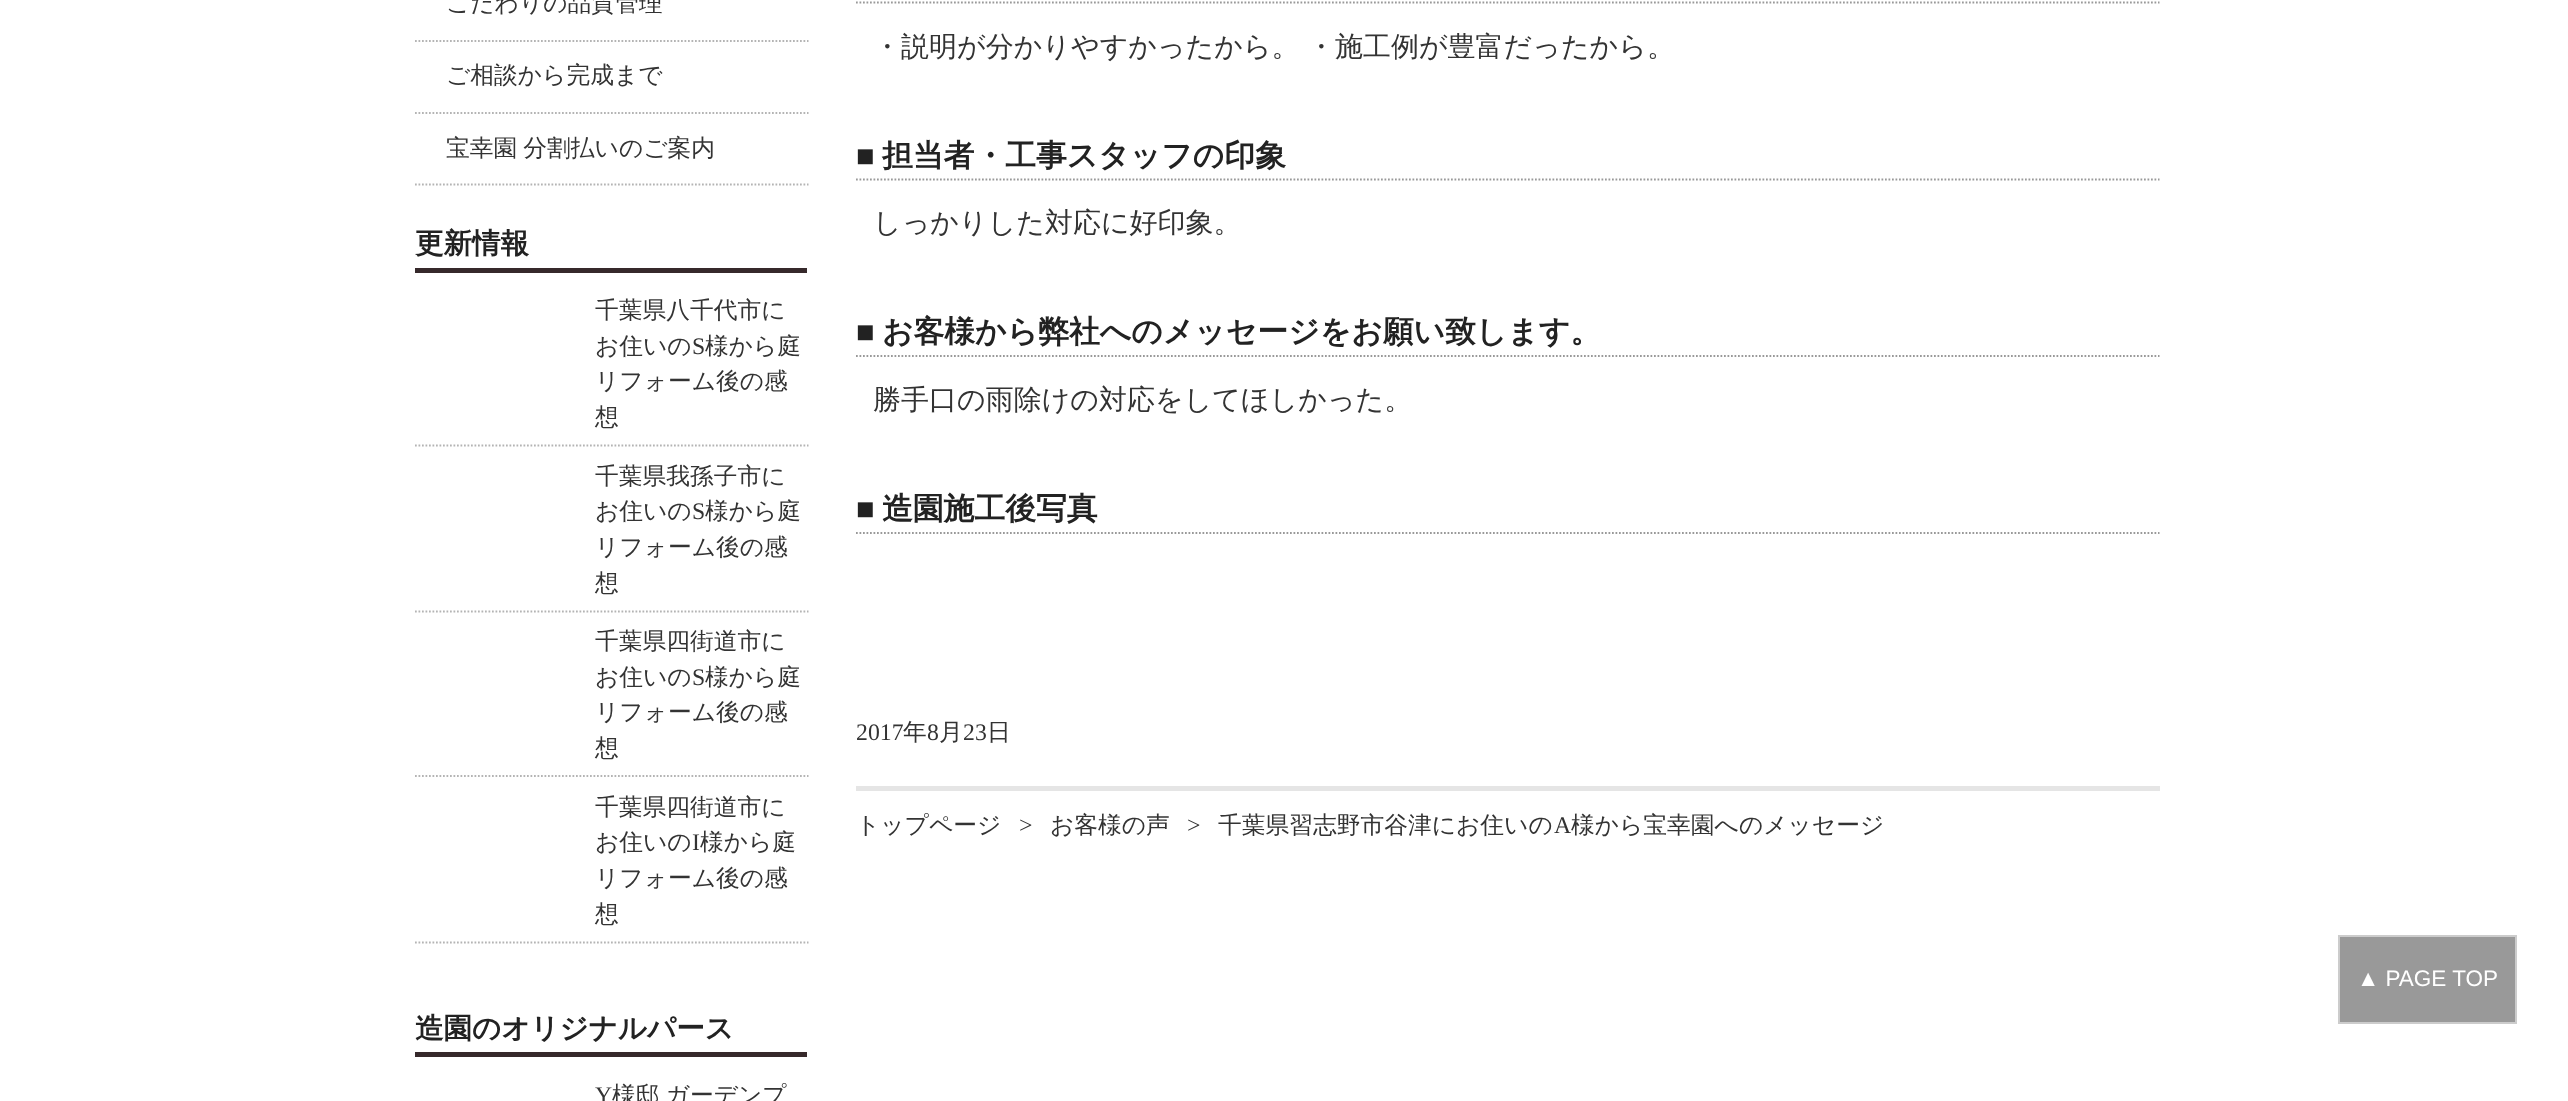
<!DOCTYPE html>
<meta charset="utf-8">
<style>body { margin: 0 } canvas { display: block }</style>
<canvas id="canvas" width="2568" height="1101"></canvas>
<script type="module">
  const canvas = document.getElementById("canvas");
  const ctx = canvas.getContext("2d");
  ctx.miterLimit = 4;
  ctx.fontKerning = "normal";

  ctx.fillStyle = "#ffffff";
  ctx.fillRect(0, 0, 2568, 1101);
  ctx.beginPath();
  ctx.moveTo(415, 41);
  ctx.lineTo(808.5, 41);
  ctx.strokeStyle = "#b4b4b4";
  ctx.lineWidth = 1.8;
  ctx.setLineDash([1.75, 1.75]);
  ctx.stroke();
  ctx.font = "500 23.75px WenQuanYi Zen Hei";
  ctx.fillStyle = "#333333";
  ctx.fillText("こだわりの品質管理", 446, 11);
  ctx.beginPath();
  ctx.moveTo(415, 113);
  ctx.lineTo(808.5, 113);
  ctx.stroke();
  ctx.fillText("ご相談から完成まで", 446, 83);
  ctx.beginPath();
  ctx.moveTo(415, 184.5);
  ctx.lineTo(808.5, 184.5);
  ctx.stroke();
  ctx.wordSpacing = "-1px";
  ctx.fillText("宝幸園 分割払いのご案内", 446, 156);
  ctx.fillStyle = "#36292b";
  ctx.fillRect(415, 268, 392, 5);
  ctx.wordSpacing = "0px";
  ctx.font = "bold 28.5px WenQuanYi Zen Hei";
  ctx.fillStyle = "#222222";
  ctx.fillText("更新情報", 415, 253);
  ctx.beginPath();
  ctx.moveTo(415, 445.5);
  ctx.lineTo(808.5, 445.5);
  ctx.stroke();
  ctx.font = "500 23.75px WenQuanYi Zen Hei";
  ctx.fillStyle = "#333333";
  ctx.fillText("千葉県八千代市に", 595, 318);
  ctx.fillText("お住いの", 595, 354);
  ctx.font = "23.75px Liberation Serif";
  ctx.fillText("S", 692, 354);
  ctx.font = "500 23.75px WenQuanYi Zen Hei";
  ctx.fillText("様から庭", 705, 354);
  ctx.fillText("リフォーム後の感", 595, 389);
  ctx.fillText("想", 595, 425);
  ctx.beginPath();
  ctx.moveTo(415, 611.5);
  ctx.lineTo(808.5, 611.5);
  ctx.stroke();
  ctx.fillText("千葉県我孫子市に", 595, 484);
  ctx.fillText("お住いの", 595, 519);
  ctx.font = "23.75px Liberation Serif";
  ctx.fillText("S", 692, 519);
  ctx.font = "500 23.75px WenQuanYi Zen Hei";
  ctx.fillText("様から庭", 705, 519);
  ctx.fillText("リフォーム後の感", 595, 555);
  ctx.fillText("想", 595, 591);
  ctx.beginPath();
  ctx.moveTo(415, 776);
  ctx.lineTo(808.5, 776);
  ctx.stroke();
  ctx.fillText("千葉県四街道市に", 595, 649);
  ctx.fillText("お住いの", 595, 685);
  ctx.font = "23.75px Liberation Serif";
  ctx.fillText("S", 692, 685);
  ctx.font = "500 23.75px WenQuanYi Zen Hei";
  ctx.fillText("様から庭", 705, 685);
  ctx.fillText("リフォーム後の感", 595, 720);
  ctx.fillText("想", 595, 756);
  ctx.beginPath();
  ctx.moveTo(415, 942.5);
  ctx.lineTo(808.5, 942.5);
  ctx.stroke();
  ctx.fillText("千葉県四街道市に", 595, 815);
  ctx.fillText("お住いの", 595, 850);
  ctx.font = "23.75px Liberation Serif";
  ctx.fillText("I", 692, 850);
  ctx.font = "500 23.75px WenQuanYi Zen Hei";
  ctx.fillText("様から庭", 700, 850);
  ctx.fillText("リフォーム後の感", 595, 886);
  ctx.fillText("想", 595, 922);
  ctx.fillStyle = "#36292b";
  ctx.fillRect(415, 1052, 392, 5);
  ctx.font = "bold 28.5px WenQuanYi Zen Hei";
  ctx.fillStyle = "#222222";
  ctx.fillText("造園のオリジナルパース", 415, 1038);
  ctx.font = "23.75px Liberation Serif";
  ctx.fillStyle = "#333333";
  ctx.fillText("Y", 595, 1103);
  ctx.wordSpacing = "-1px";
  ctx.font = "500 23.75px WenQuanYi Zen Hei";
  ctx.fillText("様邸 ガーデンプ", 612, 1103);
  ctx.beginPath();
  ctx.moveTo(856, 2.5);
  ctx.lineTo(2159.5, 2.5);
  ctx.strokeStyle = "#999999";
  ctx.stroke();
  ctx.font = "500 28px WenQuanYi Zen Hei";
  ctx.fillText("・説明が分かりやすかったから。 ・施工例が豊富だったから。", 873, 56);
  ctx.beginPath();
  ctx.moveTo(856, 179.5);
  ctx.lineTo(2159.5, 179.5);
  ctx.stroke();
  ctx.wordSpacing = "0px";
  ctx.font = "bold 30.8px Liberation Serif";
  ctx.fillStyle = "#222222";
  ctx.fillText("■", 856, 166);
  ctx.font = "bold 30.8px WenQuanYi Zen Hei";
  ctx.fillText("担当者・工事スタッフの印象", 882, 166);
  ctx.font = "500 28px WenQuanYi Zen Hei";
  ctx.fillStyle = "#333333";
  ctx.fillText("しっかりした対応に好印象。", 873, 232);
  ctx.beginPath();
  ctx.moveTo(856, 356);
  ctx.lineTo(2159.5, 356);
  ctx.stroke();
  ctx.font = "bold 30.8px Liberation Serif";
  ctx.fillStyle = "#222222";
  ctx.fillText("■", 856, 342);
  ctx.font = "bold 30.8px WenQuanYi Zen Hei";
  ctx.fillText("お客様から弊社へのメッセージをお願い致します。", 882, 342);
  ctx.font = "500 28px WenQuanYi Zen Hei";
  ctx.fillStyle = "#333333";
  ctx.fillText("勝手口の雨除けの対応をしてほしかった。", 873, 409);
  ctx.beginPath();
  ctx.moveTo(856, 533);
  ctx.lineTo(2159.5, 533);
  ctx.stroke();
  ctx.font = "bold 30.8px Liberation Serif";
  ctx.fillStyle = "#222222";
  ctx.fillText("■", 856, 519);
  ctx.font = "bold 30.8px WenQuanYi Zen Hei";
  ctx.fillText("造園施工後写真", 882, 519);
  ctx.font = "23.75px Liberation Serif";
  ctx.fillStyle = "#333333";
  ctx.fillText("2017", 856, 740);
  ctx.font = "500 23.75px WenQuanYi Zen Hei";
  ctx.fillText("年", 903, 740);
  ctx.font = "23.75px Liberation Serif";
  ctx.fillText("8", 927, 740);
  ctx.font = "500 23.75px WenQuanYi Zen Hei";
  ctx.fillText("月", 939, 740);
  ctx.font = "23.75px Liberation Serif";
  ctx.fillText("23", 963, 740);
  ctx.font = "500 23.75px WenQuanYi Zen Hei";
  ctx.fillText("日", 987, 740);
  ctx.fillStyle = "#e5e5e5";
  ctx.fillRect(856, 786, 1304, 5);
  ctx.fillStyle = "#333333";
  ctx.fillText("トップページ", 856, 833);
  ctx.letterSpacing = "18px";
  ctx.font = "23.75px Liberation Serif";
  ctx.fillText(">", 1019, 833);
  ctx.letterSpacing = "0px";
  ctx.font = "500 23.75px WenQuanYi Zen Hei";
  ctx.fillText("お客様の声", 1050, 833);
  ctx.letterSpacing = "18px";
  ctx.font = "23.75px Liberation Serif";
  ctx.fillText(">", 1187, 833);
  ctx.letterSpacing = "0px";
  ctx.font = "500 23.75px WenQuanYi Zen Hei";
  ctx.fillText("千葉県習志野市谷津にお住いの", 1218, 833);
  ctx.font = "23.75px Liberation Serif";
  ctx.fillText("A", 1554, 833);
  ctx.font = "500 23.75px WenQuanYi Zen Hei";
  ctx.fillText("様から宝幸園へのメッセージ", 1571, 833);
  ctx.fillStyle = "#999999";
  ctx.beginPath();
  ctx.rect(2339, 936, 177, 87);
  ctx.fill();
  ctx.strokeStyle = "#cccccc";
  ctx.lineWidth = 2;
  ctx.setLineDash([]);
  ctx.stroke();
  ctx.font = "22.5px Liberation Sans";
  ctx.fillStyle = "#ffffff";
  ctx.fillText("▲ PAGE TOP", 2357, 986);
</script>
